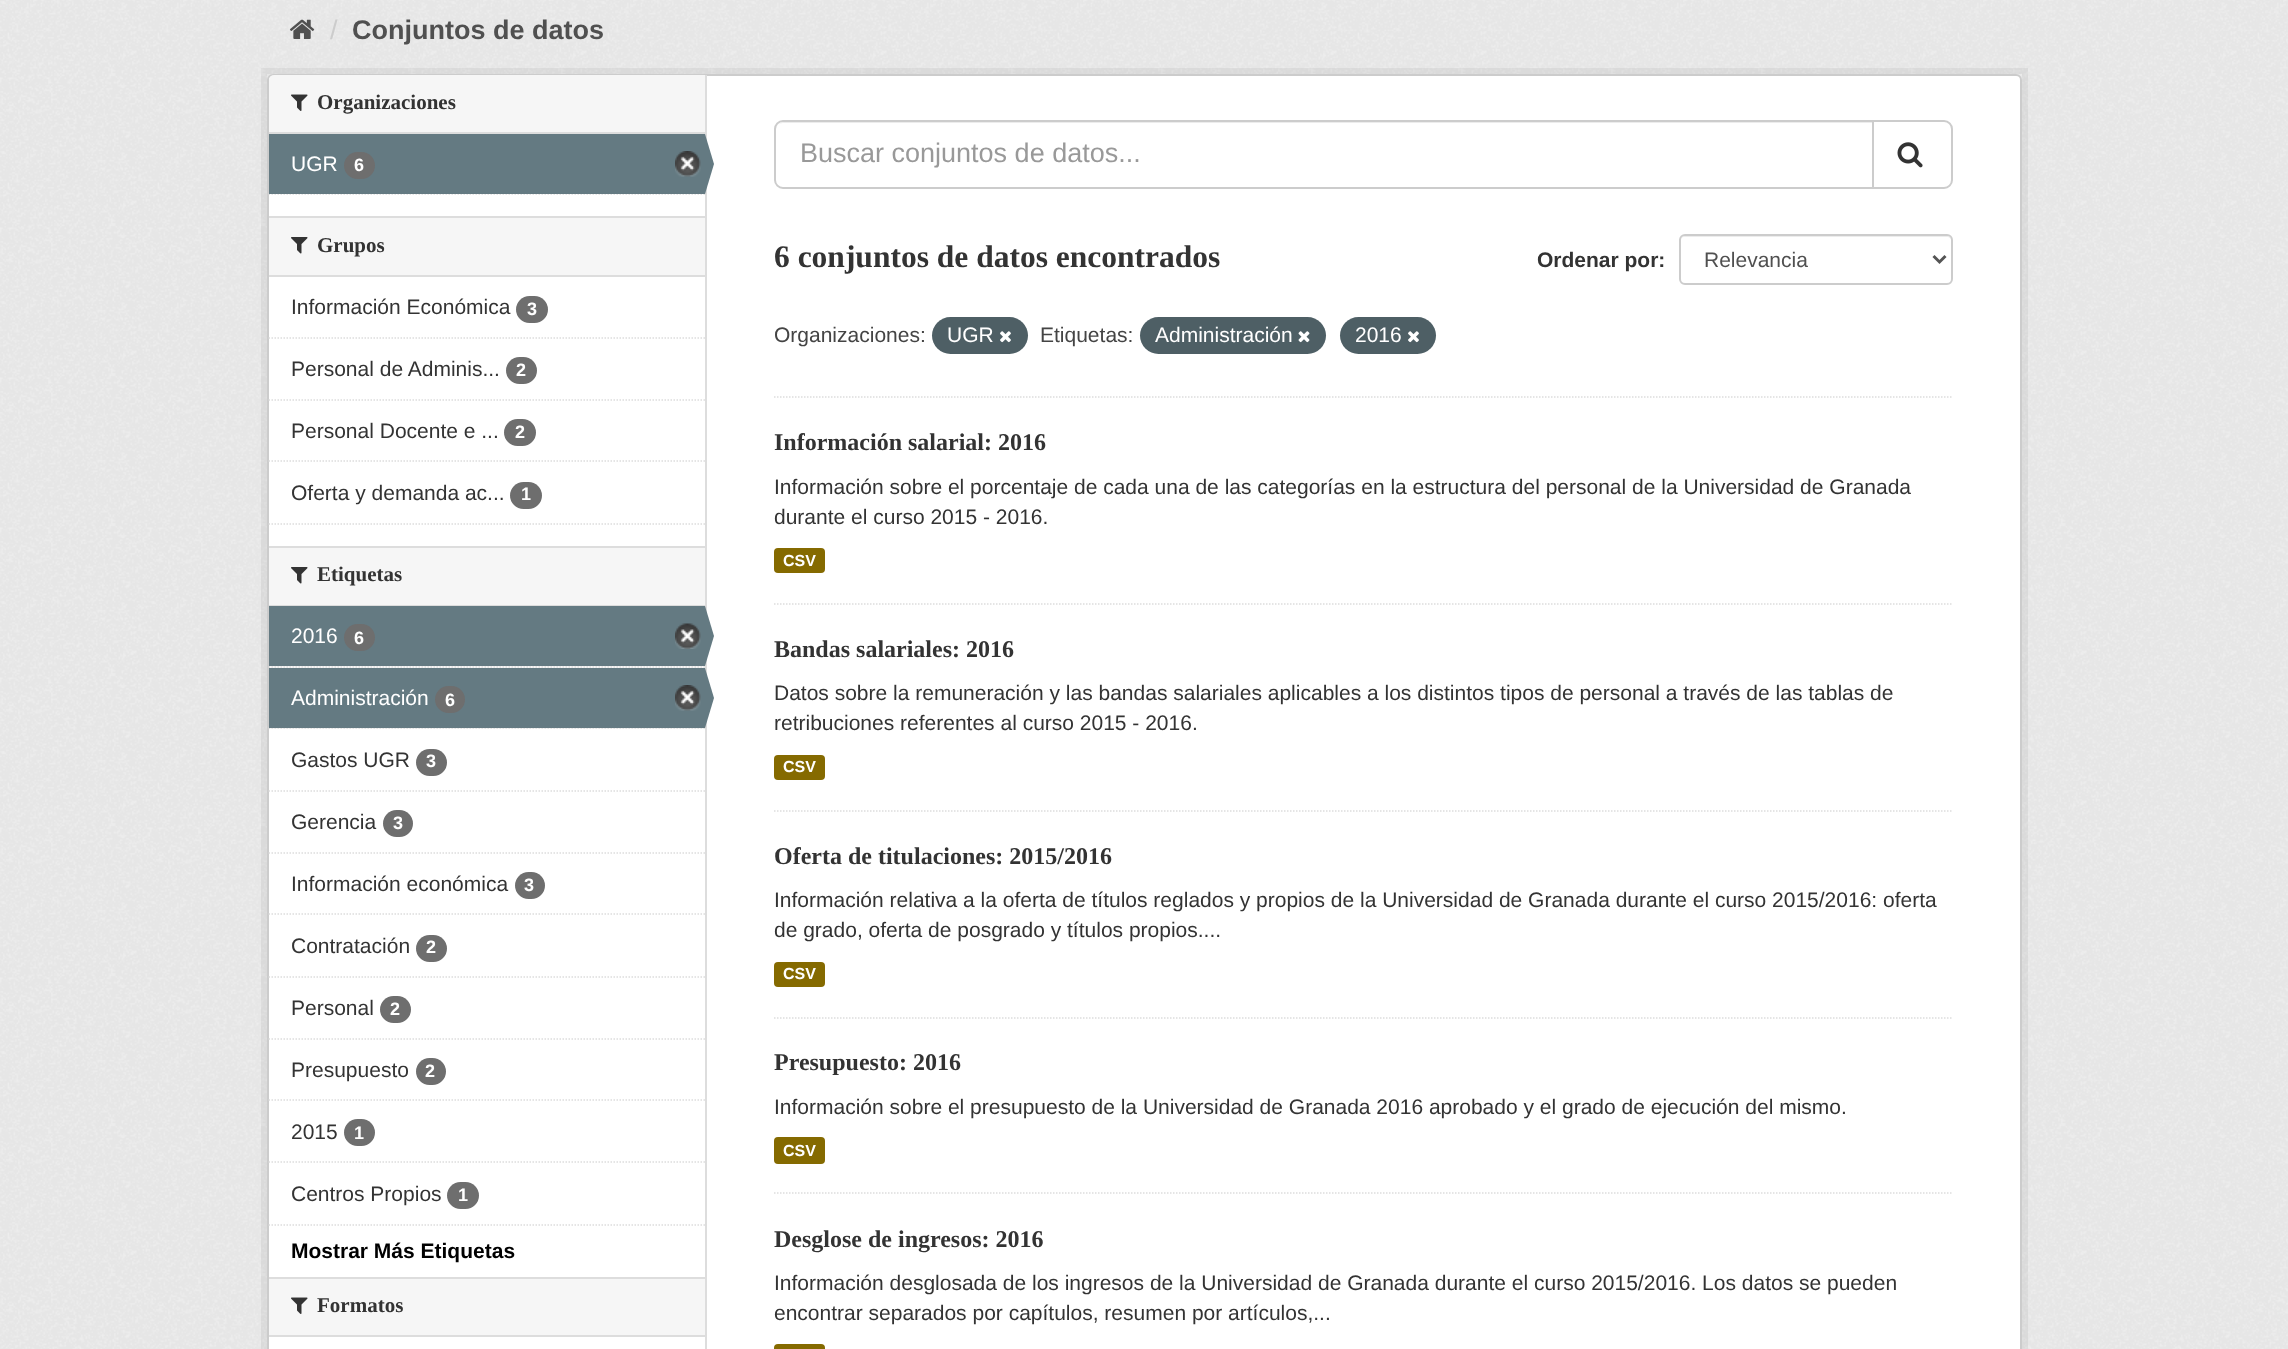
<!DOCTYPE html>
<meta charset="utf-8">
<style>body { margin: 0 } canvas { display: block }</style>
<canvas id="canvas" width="2288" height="1349"></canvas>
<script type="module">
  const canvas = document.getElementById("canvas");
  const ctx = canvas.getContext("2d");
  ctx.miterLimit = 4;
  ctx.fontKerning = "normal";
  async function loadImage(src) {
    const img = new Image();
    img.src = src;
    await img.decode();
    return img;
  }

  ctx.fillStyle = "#eeeeee";
  ctx.fillRect(0, 0, 2288, 1349);
  ctx.drawImage(await loadImage("img1.png"), 0, 0, 2288, 1349);
  ctx.drawImage(await loadImage("img2.png"), 289, 19, 26, 20);
  ctx.font = "27px Liberation Sans";
  ctx.fillStyle = "#cccccc";
  ctx.fillText("/", 330, 39);
  ctx.font = "bold 27px Liberation Sans";
  ctx.fillStyle = "#505050";
  ctx.fillText("Conjuntos de datos", 352, 39);
  ctx.strokeStyle = "rgba(0, 0, 0, 0.05)";
  ctx.lineWidth = 6;
  ctx.strokeRect(264, 71, 1761, 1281);
  ctx.fillStyle = "#ffffff";
  ctx.beginPath();
  ctx.roundRect(268, 75, 1753, 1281, 5);
  ctx.fill();
  ctx.strokeStyle = "#cccccc";
  ctx.lineWidth = 2;
  ctx.stroke();
  ctx.fillStyle = "#f6f6f6";
  ctx.beginPath();
  ctx.roundRect(269, 75, 436, 59, [5, 0, 0, 0]);
  ctx.fill();
  ctx.fillStyle = "#dddddd";
  ctx.fillRect(269, 132, 436, 2);
  ctx.drawImage(await loadImage("img3.png"), 291, 94, 17, 17);
  ctx.font = "bold 21px Liberation Serif";
  ctx.fillStyle = "#333333";
  ctx.fillText("Organizaciones", 317, 109);
  ctx.beginPath();
  ctx.moveTo(268.5, 194);
  ctx.lineTo(705, 194);
  ctx.strokeStyle = "#dddddd";
  ctx.lineWidth = 1.5;
  ctx.setLineDash([1.5, 1.5]);
  ctx.stroke();
  ctx.fillStyle = "#647a82";
  ctx.fillRect(269, 134, 436, 60);
  ctx.font = "21px Liberation Sans";
  ctx.fillStyle = "#ffffff";
  ctx.fillText("UGR", 291, 171);
  ctx.fillStyle = "#6e6e6e";
  ctx.beginPath();
  ctx.roundRect(344, 152, 31, 27, 13.5);
  ctx.fill();
  ctx.font = "bold 18px Liberation Sans";
  ctx.fillStyle = "#ffffff";
  ctx.fillText("6", 354, 171);
  ctx.drawImage(await loadImage("img4.png"), 675, 151, 26, 26);
  ctx.fillStyle = "#dddddd";
  ctx.fillRect(705, 75, 2, 1274);
  ctx.fillStyle = "#647a82";
  ctx.beginPath();
  ctx.moveTo(705, 194);
  ctx.lineTo(705, 134);
  ctx.lineTo(714, 164);
  ctx.closePath();
  ctx.fill();
  ctx.fillStyle = "#f6f6f6";
  ctx.fillRect(269, 218, 436, 57);
  ctx.fillStyle = "#dddddd";
  ctx.fillRect(269, 216, 436, 2);
  ctx.fillRect(269, 275, 436, 2);
  ctx.drawImage(await loadImage("img5.png"), 291, 237, 17, 17);
  ctx.font = "bold 21px Liberation Serif";
  ctx.fillStyle = "#333333";
  ctx.fillText("Grupos", 317, 252);
  ctx.beginPath();
  ctx.moveTo(268.5, 338);
  ctx.lineTo(705, 338);
  ctx.stroke();
  ctx.font = "21px Liberation Sans";
  ctx.fillText("Información Económica", 291, 314);
  ctx.fillStyle = "#6e6e6e";
  ctx.beginPath();
  ctx.roundRect(516, 296, 32, 27, 13.5);
  ctx.fill();
  ctx.font = "bold 18px Liberation Sans";
  ctx.fillStyle = "#ffffff";
  ctx.fillText("3", 527, 315);
  ctx.beginPath();
  ctx.moveTo(268.5, 400);
  ctx.lineTo(705, 400);
  ctx.stroke();
  ctx.font = "21px Liberation Sans";
  ctx.fillStyle = "#333333";
  ctx.fillText("Personal de Adminis...", 291, 376);
  ctx.fillStyle = "#6e6e6e";
  ctx.beginPath();
  ctx.roundRect(506, 357, 31, 27, 13.5);
  ctx.fill();
  ctx.font = "bold 18px Liberation Sans";
  ctx.fillStyle = "#ffffff";
  ctx.fillText("2", 516, 376);
  ctx.beginPath();
  ctx.moveTo(268.5, 461);
  ctx.lineTo(705, 461);
  ctx.stroke();
  ctx.font = "21px Liberation Sans";
  ctx.fillStyle = "#333333";
  ctx.fillText("Personal Docente e ...", 291, 438);
  ctx.fillStyle = "#6e6e6e";
  ctx.beginPath();
  ctx.roundRect(504, 419, 32, 27, 13.5);
  ctx.fill();
  ctx.font = "bold 18px Liberation Sans";
  ctx.fillStyle = "#ffffff";
  ctx.fillText("2", 515, 438);
  ctx.font = "21px Liberation Sans";
  ctx.fillStyle = "#333333";
  ctx.fillText("Oferta y demanda ac...", 291, 500);
  ctx.fillStyle = "#6e6e6e";
  ctx.beginPath();
  ctx.roundRect(510, 482, 32, 27, 13.5);
  ctx.fill();
  ctx.font = "bold 18px Liberation Sans";
  ctx.fillStyle = "#ffffff";
  ctx.fillText("1", 521, 500);
  ctx.beginPath();
  ctx.moveTo(268.5, 524);
  ctx.lineTo(705, 524);
  ctx.stroke();
  ctx.fillStyle = "#f6f6f6";
  ctx.fillRect(269, 548, 436, 57);
  ctx.fillStyle = "#dddddd";
  ctx.fillRect(269, 546, 436, 2);
  ctx.fillRect(269, 605, 436, 1);
  ctx.drawImage(await loadImage("img5.png"), 291, 567, 17, 17);
  ctx.font = "bold 21px Liberation Serif";
  ctx.fillStyle = "#333333";
  ctx.fillText("Etiquetas", 317, 581);
  ctx.fillStyle = "#f6f6f6";
  ctx.fillRect(269, 666, 436, 2);
  ctx.beginPath();
  ctx.moveTo(268.5, 667);
  ctx.lineTo(705, 667);
  ctx.stroke();
  ctx.fillStyle = "#647a82";
  ctx.fillRect(269, 606, 436, 60);
  ctx.font = "21px Liberation Sans";
  ctx.fillStyle = "#ffffff";
  ctx.fillText("2016", 291, 643);
  ctx.fillStyle = "#6e6e6e";
  ctx.beginPath();
  ctx.roundRect(344, 624, 31, 27, 13.5);
  ctx.fill();
  ctx.font = "bold 18px Liberation Sans";
  ctx.fillStyle = "#ffffff";
  ctx.fillText("6", 354, 644);
  ctx.drawImage(await loadImage("img6.png"), 675, 623, 26, 26);
  ctx.fillStyle = "#647a82";
  ctx.beginPath();
  ctx.moveTo(705, 666);
  ctx.lineTo(705, 606);
  ctx.lineTo(714, 636);
  ctx.closePath();
  ctx.fill();
  ctx.fillStyle = "#f6f6f6";
  ctx.fillRect(269, 728, 436, 1);
  ctx.beginPath();
  ctx.moveTo(268.5, 728);
  ctx.lineTo(705, 728);
  ctx.stroke();
  ctx.fillStyle = "#647a82";
  ctx.fillRect(269, 668, 436, 60);
  ctx.font = "21px Liberation Sans";
  ctx.fillStyle = "#ffffff";
  ctx.fillText("Administración", 291, 705);
  ctx.fillStyle = "#6e6e6e";
  ctx.beginPath();
  ctx.roundRect(435, 686, 30, 27, 13.5);
  ctx.fill();
  ctx.font = "bold 18px Liberation Sans";
  ctx.fillStyle = "#ffffff";
  ctx.fillText("6", 445, 706);
  ctx.drawImage(await loadImage("img4.png"), 675, 685, 26, 26);
  ctx.fillStyle = "#647a82";
  ctx.beginPath();
  ctx.moveTo(705, 728);
  ctx.lineTo(705, 668);
  ctx.lineTo(714, 698);
  ctx.closePath();
  ctx.fill();
  ctx.beginPath();
  ctx.moveTo(268.5, 791);
  ctx.lineTo(705, 791);
  ctx.stroke();
  ctx.font = "21px Liberation Sans";
  ctx.fillStyle = "#333333";
  ctx.fillText("Gastos UGR", 291, 767);
  ctx.fillStyle = "#6e6e6e";
  ctx.beginPath();
  ctx.roundRect(416, 749, 31, 27, 13.5);
  ctx.fill();
  ctx.font = "bold 18px Liberation Sans";
  ctx.fillStyle = "#ffffff";
  ctx.fillText("3", 426, 767);
  ctx.beginPath();
  ctx.moveTo(268.5, 853);
  ctx.lineTo(705, 853);
  ctx.stroke();
  ctx.font = "21px Liberation Sans";
  ctx.fillStyle = "#333333";
  ctx.fillText("Gerencia", 291, 829);
  ctx.fillStyle = "#6e6e6e";
  ctx.beginPath();
  ctx.roundRect(383, 810, 30, 27, 13.5);
  ctx.fill();
  ctx.font = "bold 18px Liberation Sans";
  ctx.fillStyle = "#ffffff";
  ctx.fillText("3", 393, 829);
  ctx.beginPath();
  ctx.moveTo(268.5, 914);
  ctx.lineTo(705, 914);
  ctx.stroke();
  ctx.font = "21px Liberation Sans";
  ctx.fillStyle = "#333333";
  ctx.fillText("Información económica", 291, 891);
  ctx.fillStyle = "#6e6e6e";
  ctx.beginPath();
  ctx.roundRect(515, 872, 30, 27, 13.5);
  ctx.fill();
  ctx.font = "bold 18px Liberation Sans";
  ctx.fillStyle = "#ffffff";
  ctx.fillText("3", 524, 891);
  ctx.beginPath();
  ctx.moveTo(268.5, 977);
  ctx.lineTo(705, 977);
  ctx.stroke();
  ctx.font = "21px Liberation Sans";
  ctx.fillStyle = "#333333";
  ctx.fillText("Contratación", 291, 953);
  ctx.fillStyle = "#6e6e6e";
  ctx.beginPath();
  ctx.roundRect(416, 935, 31, 27, 13.5);
  ctx.fill();
  ctx.font = "bold 18px Liberation Sans";
  ctx.fillStyle = "#ffffff";
  ctx.fillText("2", 426, 953);
  ctx.beginPath();
  ctx.moveTo(268.5, 1039);
  ctx.lineTo(705, 1039);
  ctx.stroke();
  ctx.font = "21px Liberation Sans";
  ctx.fillStyle = "#333333";
  ctx.fillText("Personal", 291, 1015);
  ctx.fillStyle = "#6e6e6e";
  ctx.beginPath();
  ctx.roundRect(380, 996, 31, 27, 13.5);
  ctx.fill();
  ctx.font = "bold 18px Liberation Sans";
  ctx.fillStyle = "#ffffff";
  ctx.fillText("2", 390, 1015);
  ctx.beginPath();
  ctx.moveTo(268.5, 1100);
  ctx.lineTo(705, 1100);
  ctx.stroke();
  ctx.font = "21px Liberation Sans";
  ctx.fillStyle = "#333333";
  ctx.fillText("Presupuesto", 291, 1077);
  ctx.fillStyle = "#6e6e6e";
  ctx.beginPath();
  ctx.roundRect(416, 1058, 30, 27, 13.5);
  ctx.fill();
  ctx.font = "bold 18px Liberation Sans";
  ctx.fillStyle = "#ffffff";
  ctx.fillText("2", 425, 1077);
  ctx.beginPath();
  ctx.moveTo(268.5, 1162);
  ctx.lineTo(705, 1162);
  ctx.stroke();
  ctx.font = "21px Liberation Sans";
  ctx.fillStyle = "#333333";
  ctx.fillText("2015", 291, 1139);
  ctx.fillStyle = "#6e6e6e";
  ctx.beginPath();
  ctx.roundRect(344, 1119, 31, 27, 13.5);
  ctx.fill();
  ctx.font = "bold 18px Liberation Sans";
  ctx.fillStyle = "#ffffff";
  ctx.fillText("1", 354, 1139);
  ctx.font = "21px Liberation Sans";
  ctx.fillStyle = "#333333";
  ctx.fillText("Centros Propios", 291, 1201);
  ctx.fillStyle = "#6e6e6e";
  ctx.beginPath();
  ctx.roundRect(447, 1182, 32, 27, 13.5);
  ctx.fill();
  ctx.font = "bold 18px Liberation Sans";
  ctx.fillStyle = "#ffffff";
  ctx.fillText("1", 458, 1201);
  ctx.beginPath();
  ctx.moveTo(268.5, 1225);
  ctx.lineTo(705, 1225);
  ctx.stroke();
  ctx.font = "bold 21px Liberation Sans";
  ctx.fillStyle = "#000000";
  ctx.fillText("Mostrar Más Etiquetas", 291, 1258);
  ctx.fillStyle = "#f6f6f6";
  ctx.fillRect(269, 1279, 436, 56);
  ctx.fillStyle = "#dddddd";
  ctx.fillRect(269, 1277, 436, 2);
  ctx.fillRect(269, 1335, 436, 2);
  ctx.drawImage(await loadImage("img3.png"), 291, 1297, 17, 17);
  ctx.font = "bold 21px Liberation Serif";
  ctx.fillStyle = "#333333";
  ctx.fillText("Formatos", 317, 1312);
  ctx.beginPath();
  ctx.moveTo(774, 397);
  ctx.lineTo(1953, 397);
  ctx.stroke();
  ctx.fillStyle = "#ececec";
  ctx.beginPath();
  ctx.moveTo(783, 123);
  ctx.lineTo(1872, 123);
  ctx.lineTo(1872, 122);
  ctx.lineTo(784, 122);
  ctx.bezierCurveTo(780, 122, 776, 126, 776, 130);
  ctx.bezierCurveTo(776, 126, 779, 123, 783, 123);
  ctx.closePath();
  ctx.fill();
  ctx.beginPath();
  ctx.roundRect(775, 121, 1098, 67, [8, 0, 0, 8]);
  ctx.strokeStyle = "#cccccc";
  ctx.lineWidth = 2;
  ctx.setLineDash([]);
  ctx.stroke();
  ctx.font = "27px Liberation Sans";
  ctx.fillStyle = "#999999";
  ctx.fillText("Buscar conjuntos de datos...", 800, 162);
  ctx.fillStyle = "#ffffff";
  ctx.beginPath();
  ctx.roundRect(1873, 121, 79, 67, [0, 8, 8, 0]);
  ctx.fill();
  ctx.stroke();
  ctx.drawImage(await loadImage("img7.png"), 1897, 142, 26, 26);
  ctx.font = "bold 31.5px Liberation Serif";
  ctx.fillStyle = "#333333";
  ctx.fillText("6 conjuntos de datos encontrados", 774, 267);
  ctx.font = "bold 21px Liberation Sans";
  ctx.fillText("Ordenar por:", 1537, 267);
  ctx.fillStyle = "#ececec";
  ctx.beginPath();
  ctx.moveTo(1684, 237);
  ctx.lineTo(1947, 237);
  ctx.bezierCurveTo(1949, 237, 1952, 239, 1952, 242);
  ctx.bezierCurveTo(1952, 239, 1950, 236, 1947, 236);
  ctx.lineTo(1685, 236);
  ctx.bezierCurveTo(1682, 236, 1680, 239, 1680, 242);
  ctx.bezierCurveTo(1680, 239, 1682, 237, 1684, 237);
  ctx.closePath();
  ctx.fill();
  ctx.beginPath();
  ctx.roundRect(1680, 235, 272, 49, 5);
  ctx.stroke();
  ctx.beginPath();
  ctx.moveTo(1933.5, 256);
  ctx.lineTo(1939.5, 262);
  ctx.lineTo(1945.5, 256);
  ctx.strokeStyle = "#555555";
  ctx.lineWidth = 3;
  ctx.stroke();
  ctx.font = "21px Liberation Sans";
  ctx.fillStyle = "#505050";
  ctx.fillText("Relevancia", 1704, 267);
  ctx.fillStyle = "#444444";
  ctx.fillText("Organizaciones:", 774, 342);
  ctx.fillStyle = "#4e5f65";
  ctx.beginPath();
  ctx.roundRect(932, 317, 96, 37, 18.5);
  ctx.fill();
  ctx.fillStyle = "#ffffff";
  ctx.fillText("UGR", 947, 342);
  ctx.drawImage(await loadImage("img8.png"), 1000, 331, 11, 12);
  ctx.fillStyle = "#444444";
  ctx.fillText("Etiquetas:", 1040, 342);
  ctx.fillStyle = "#4e5f65";
  ctx.beginPath();
  ctx.roundRect(1140, 317, 186, 37, 18.5);
  ctx.fill();
  ctx.fillStyle = "#ffffff";
  ctx.fillText("Administración", 1155, 342);
  ctx.drawImage(await loadImage("img9.png"), 1298, 331, 12, 12);
  ctx.fillStyle = "#4e5f65";
  ctx.beginPath();
  ctx.roundRect(1340, 317, 96, 37, 18.5);
  ctx.fill();
  ctx.fillStyle = "#ffffff";
  ctx.fillText("2016", 1355, 342);
  ctx.drawImage(await loadImage("img8.png"), 1408, 331, 11, 12);
  ctx.beginPath();
  ctx.moveTo(774, 604);
  ctx.lineTo(1953, 604);
  ctx.strokeStyle = "#dddddd";
  ctx.lineWidth = 1.5;
  ctx.setLineDash([1.5, 1.5]);
  ctx.stroke();
  ctx.font = "bold 24px Liberation Serif";
  ctx.fillStyle = "#333333";
  ctx.fillText("Información salarial: 2016", 774, 450);
  ctx.font = "21px Liberation Sans";
  ctx.fillText("Información sobre el porcentaje de cada una de las categorías en la estructura del personal de la Universidad de Granada", 774, 494);
  ctx.fillText("durante el curso 2015 - 2016.", 774, 524);
  ctx.fillStyle = "#856a00";
  ctx.beginPath();
  ctx.roundRect(774, 548, 51, 25, 4);
  ctx.fill();
  ctx.font = "bold 16px Liberation Sans";
  ctx.fillStyle = "#ffffff";
  ctx.fillText("CSV", 783, 566);
  ctx.beginPath();
  ctx.moveTo(774, 811);
  ctx.lineTo(1953, 811);
  ctx.stroke();
  ctx.font = "bold 24px Liberation Serif";
  ctx.fillStyle = "#333333";
  ctx.fillText("Bandas salariales: 2016", 774, 657);
  ctx.font = "21px Liberation Sans";
  ctx.fillText("Datos sobre la remuneración y las bandas salariales aplicables a los distintos tipos de personal a través de las tablas de", 774, 700);
  ctx.fillText("retribuciones referentes al curso 2015 - 2016.", 774, 730);
  ctx.fillStyle = "#856a00";
  ctx.beginPath();
  ctx.roundRect(774, 755, 51, 25, 4);
  ctx.fill();
  ctx.font = "bold 16px Liberation Sans";
  ctx.fillStyle = "#ffffff";
  ctx.fillText("CSV", 783, 772);
  ctx.beginPath();
  ctx.moveTo(774, 1018);
  ctx.lineTo(1953, 1018);
  ctx.stroke();
  ctx.font = "bold 24px Liberation Serif";
  ctx.fillStyle = "#333333";
  ctx.fillText("Oferta de titulaciones: 2015/2016", 774, 864);
  ctx.font = "21px Liberation Sans";
  ctx.fillText("Información relativa a la oferta de títulos reglados y propios de la Universidad de Granada durante el curso 2015/2016: oferta", 774, 907);
  ctx.fillText("de grado, oferta de posgrado y títulos propios....", 774, 937);
  ctx.fillStyle = "#856a00";
  ctx.beginPath();
  ctx.roundRect(774, 962, 51, 25, 4);
  ctx.fill();
  ctx.font = "bold 16px Liberation Sans";
  ctx.fillStyle = "#ffffff";
  ctx.fillText("CSV", 783, 979);
  ctx.beginPath();
  ctx.moveTo(774, 1193);
  ctx.lineTo(1953, 1193);
  ctx.stroke();
  ctx.font = "bold 24px Liberation Serif";
  ctx.fillStyle = "#333333";
  ctx.fillText("Presupuesto: 2016", 774, 1070);
  ctx.font = "21px Liberation Sans";
  ctx.fillText("Información sobre el presupuesto de la Universidad de Granada 2016 aprobado y el grado de ejecución del mismo.", 774, 1114);
  ctx.fillStyle = "#856a00";
  ctx.beginPath();
  ctx.roundRect(774, 1137, 51, 27, 4);
  ctx.fill();
  ctx.font = "bold 16px Liberation Sans";
  ctx.fillStyle = "#ffffff";
  ctx.fillText("CSV", 783, 1156);
  ctx.font = "bold 24px Liberation Serif";
  ctx.fillStyle = "#333333";
  ctx.fillText("Desglose de ingresos: 2016", 774, 1247);
  ctx.font = "21px Liberation Sans";
  ctx.fillText("Información desglosada de los ingresos de la Universidad de Granada durante el curso 2015/2016. Los datos se pueden", 774, 1290);
  ctx.fillText("encontrar separados por capítulos, resumen por artículos,...", 774, 1320);
  ctx.fillStyle = "#856a00";
  ctx.beginPath();
  ctx.roundRect(774, 1344, 51, 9, 4);
  ctx.fill();
</script>
